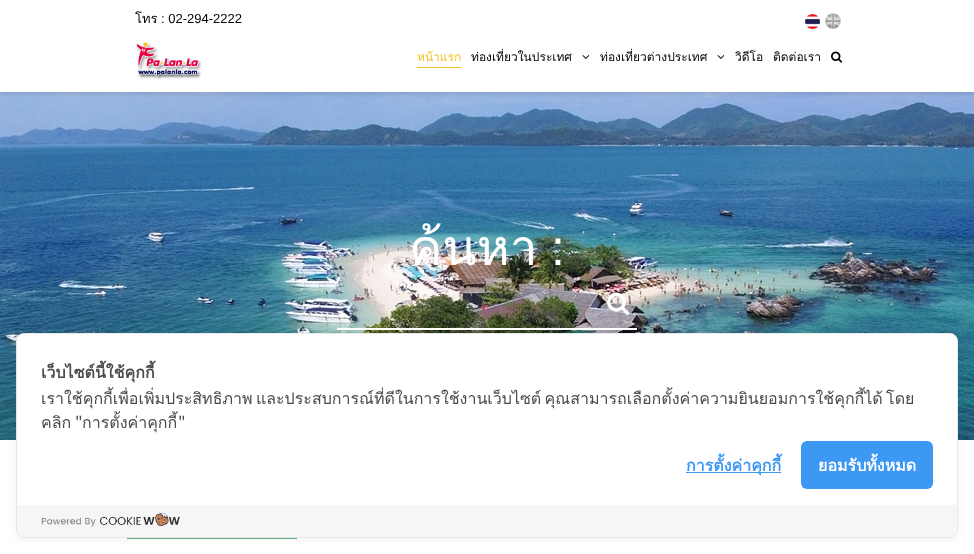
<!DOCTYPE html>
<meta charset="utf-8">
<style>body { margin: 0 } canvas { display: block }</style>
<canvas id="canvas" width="974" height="554"></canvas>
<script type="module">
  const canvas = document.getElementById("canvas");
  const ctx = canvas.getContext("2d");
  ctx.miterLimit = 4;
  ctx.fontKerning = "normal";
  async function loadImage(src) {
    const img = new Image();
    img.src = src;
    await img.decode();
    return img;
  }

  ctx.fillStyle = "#ffffff";
  ctx.fillRect(0, 0, 974, 554);
  ctx.drawImage(await loadImage("img6.png"), 0, 92, 974, 348);
  ctx.fillStyle = "rgba(0, 0, 0, 0.12)";
  ctx.filter = "blur(2.5px)";
  ctx.beginPath();
  ctx.rect(0, 2, 974, 92);
  ctx.fill();
  ctx.filter = "none";
  ctx.fillStyle = "#ffffff";
  ctx.fillRect(0, 0, 974, 92);
  ctx.font = "13px Loma";
  ctx.fillStyle = "#000000";
  ctx.fillText("โทร", 135, 23);
  ctx.font = "13px Liberation Sans";
  ctx.fillText(": 02-294-2222", 161, 23);
  ctx.drawImage(await loadImage("img1.png"), 805, 14, 15, 15);
  ctx.drawImage(await loadImage("img2.png"), 825, 13, 16, 16);
  ctx.drawImage(await loadImage("img3.png"), 136, 42, 66, 38);
  ctx.font = "12px Loma";
  ctx.fillStyle = "#f4c121";
  ctx.fillText("หน้าแรก", 417, 61);
  ctx.fillRect(417, 67, 44, 1);
  ctx.fillStyle = "#000000";
  ctx.fillText("ท่องเที่ยวในประเทศ", 471, 61);
  ctx.drawImage(await loadImage("img4.png"), 582, 55, 8, 4);
  ctx.fillText("ท่องเที่ยวต่างประเทศ", 600, 61);
  ctx.drawImage(await loadImage("img4.png"), 717, 55, 8, 4);
  ctx.fillText("วิดีโอ", 735, 61);
  ctx.fillText("ติดต่อเรา", 773, 61);
  ctx.drawImage(await loadImage("img5.png"), 831, 51, 12, 12);
  ctx.font = "50px Loma";
  ctx.fillStyle = "#ffffff";
  ctx.fillText("ค้นหา", 409, 265);
  ctx.font = "50px Liberation Sans";
  ctx.fillText(":", 551, 265);
  ctx.fillRect(337, 328, 300, 2);
  ctx.drawImage(await loadImage("img7.png"), 607, 292, 23, 23);
  ctx.fillStyle = "#5fb37f";
  ctx.fillRect(127, 538, 170, 1);
  ctx.fillStyle = "rgba(0, 0, 0, 0.05)";
  ctx.filter = "blur(4px)";
  ctx.beginPath();
  ctx.roundRect(16, 335, 942, 205, 8);
  ctx.fill();
  ctx.filter = "none";
  ctx.fillStyle = "#ffffff";
  ctx.beginPath();
  ctx.roundRect(16.5, 333.5, 941, 204, 7.5);
  ctx.fill();
  ctx.strokeStyle = "#e8e8e8";
  ctx.stroke();
  ctx.font = "bold 16px Loma";
  ctx.fillStyle = "#4a4a4a";
  ctx.fillText("เว็บไซต์นี้ใช้คุกกี้", 41, 378);
  ctx.wordSpacing = "-2px";
  ctx.font = "16px Loma";
  ctx.fillText("เราใช้คุกกี้เพื่อเพิ่มประสิทธิภาพ และประสบการณ์ที่ดีในการใช้งานเว็บไซต์ คุณสามารถเลือกตั้งค่าความยินยอมการใช้คุกกี้ได้ โดย", 41, 404);
  ctx.wordSpacing = "0px";
  ctx.fillText("คลิก", 41, 428);
  ctx.font = "16px Noto Sans JP";
  ctx.fillText("\"", 75, 428);
  ctx.font = "16px Loma";
  ctx.fillText("การตั้งค่าคุกกี้", 82, 428);
  ctx.font = "16px Noto Sans JP";
  ctx.fillText("\"", 178, 428);
  ctx.fillStyle = "#3d98f3";
  ctx.fillRect(686, 472, 95, 1);
  ctx.font = "bold 16px Loma";
  ctx.fillText("การตั้งค่าคุกกี้", 686, 471);
  ctx.beginPath();
  ctx.roundRect(801, 441, 132, 48, 6);
  ctx.fill();
  ctx.fillStyle = "#ffffff";
  ctx.fillText("ยอมรับทั้งหมด", 818, 471);
  ctx.fillStyle = "#f6f6f6";
  ctx.beginPath();
  ctx.roundRect(17, 505, 940, 32, [0, 0, 8, 8]);
  ctx.fill();
  ctx.drawImage(await loadImage("img8.png"), 41, 512, 139, 15);
</script>
